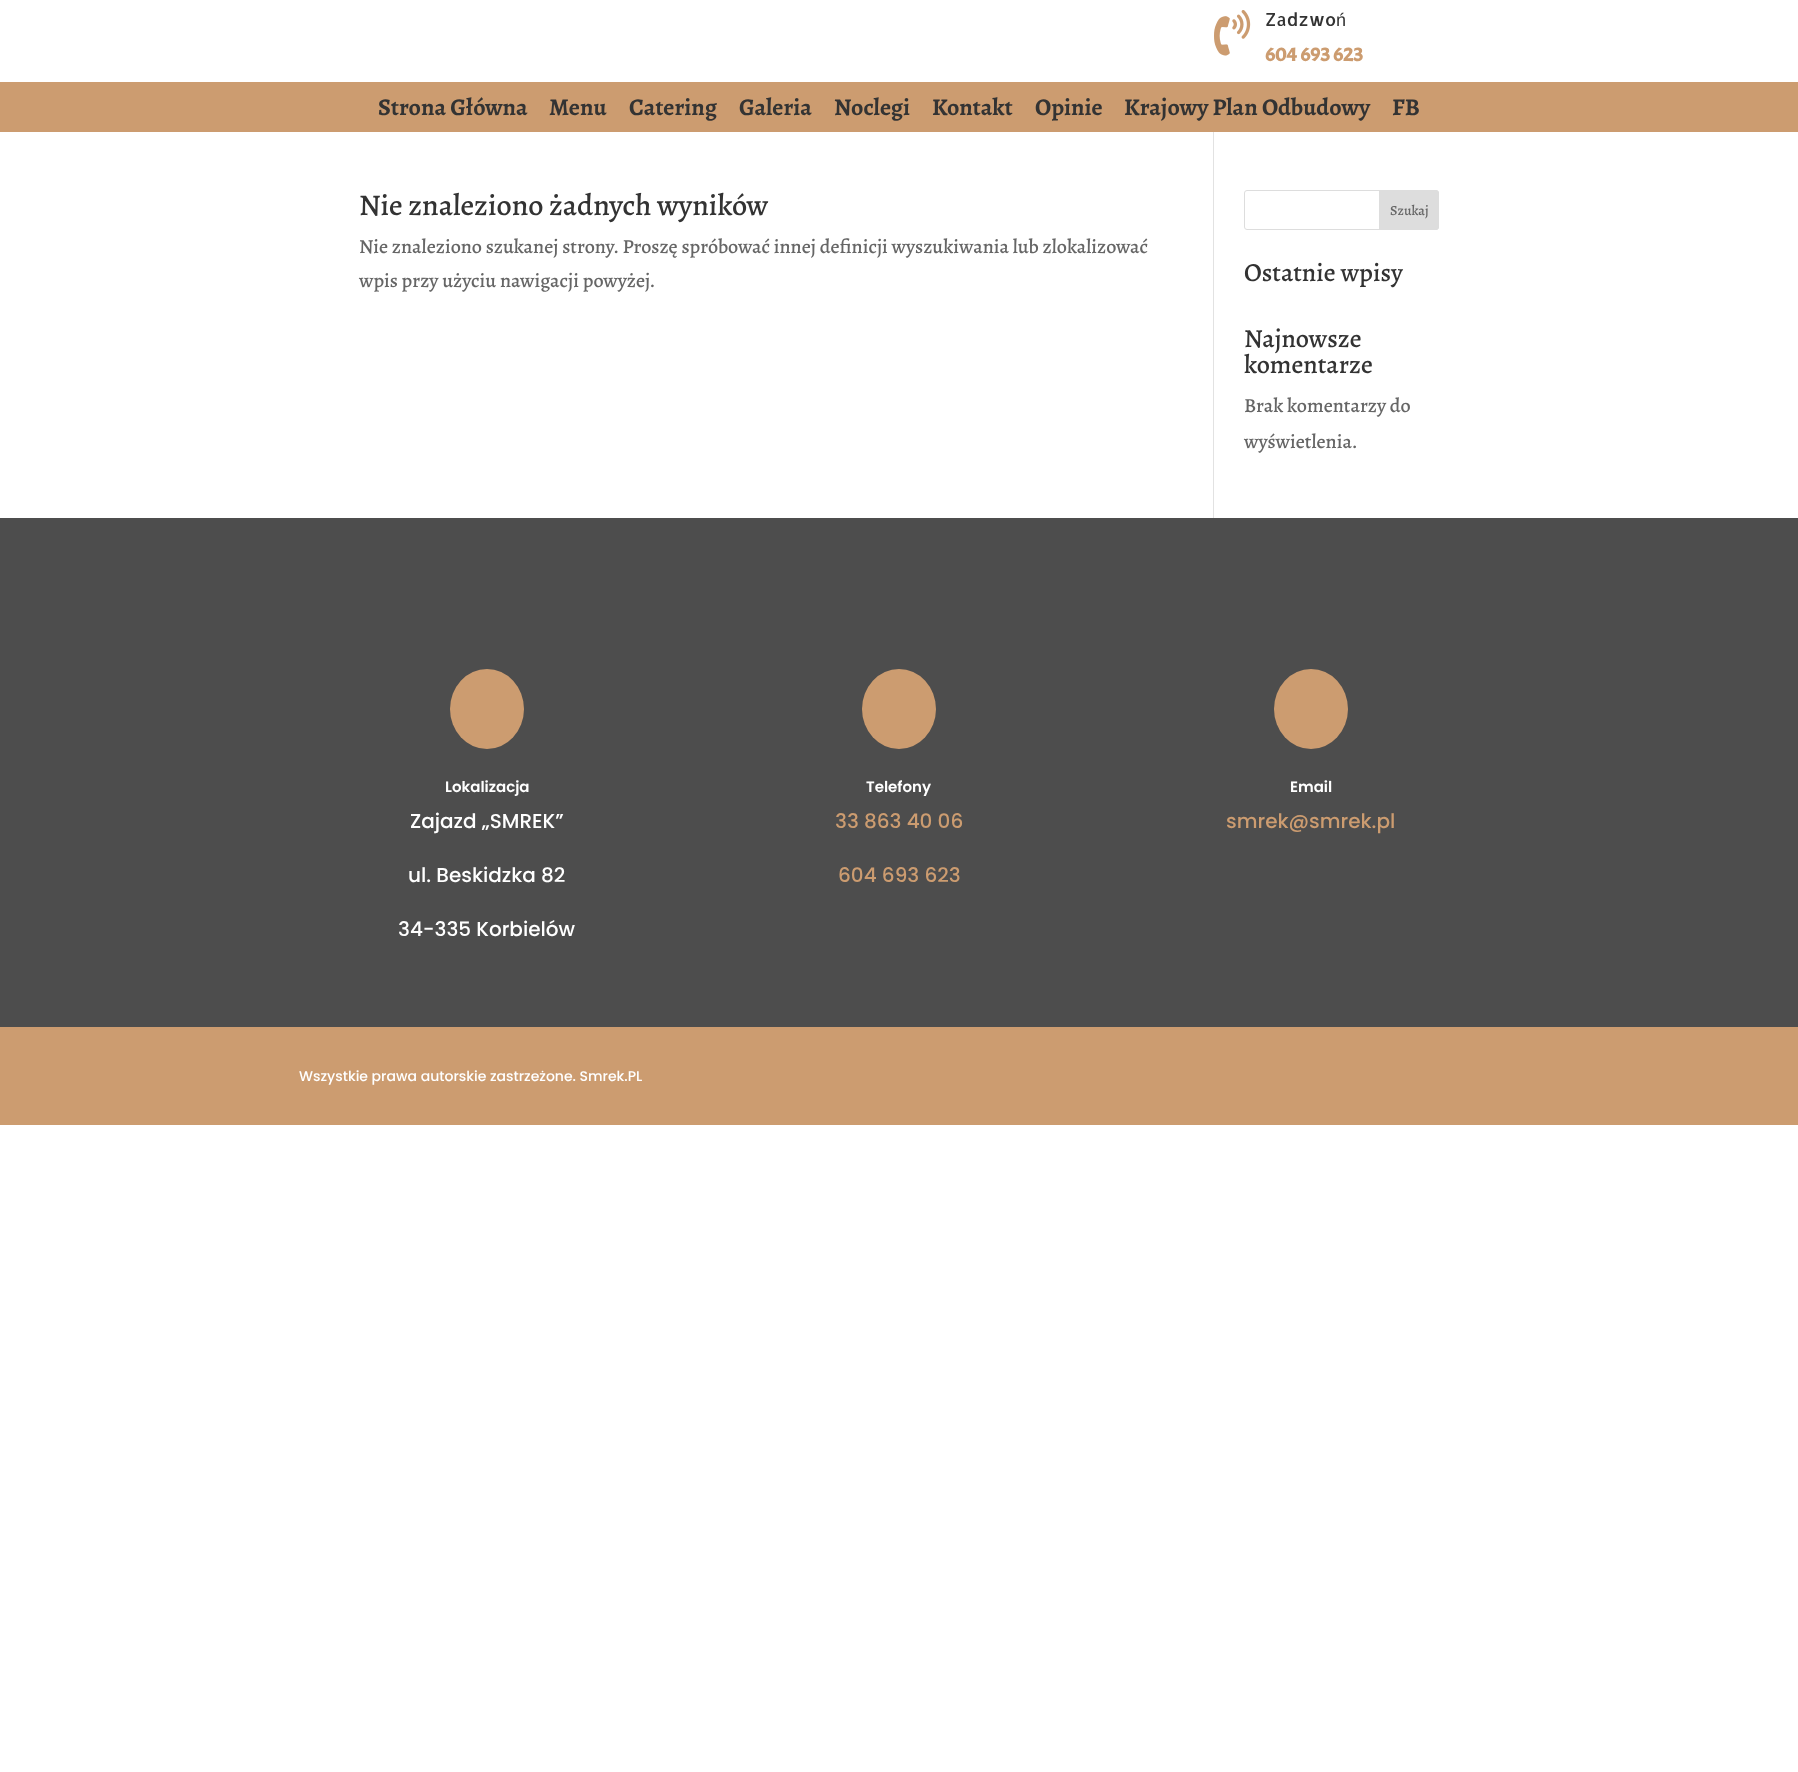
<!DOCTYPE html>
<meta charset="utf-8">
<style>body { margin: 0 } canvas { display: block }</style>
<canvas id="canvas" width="1798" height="1772"></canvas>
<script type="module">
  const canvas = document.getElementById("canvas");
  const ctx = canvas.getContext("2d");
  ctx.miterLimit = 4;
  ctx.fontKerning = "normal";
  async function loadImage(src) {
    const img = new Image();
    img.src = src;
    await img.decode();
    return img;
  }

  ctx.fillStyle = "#ffffff";
  ctx.fillRect(0, 0, 1798, 1772);
  ctx.drawImage(await loadImage("img1.png"), 1214, 10, 37, 46);
  ctx.font = "18px Allerta";
  ctx.fillStyle = "#333333";
  ctx.fillText("Zadzwo", 1265, 26);
  ctx.font = "18px Liberation Sans";
  ctx.fillText("ń", 1336, 26);
  ctx.font = "bold 20px Acme";
  ctx.fillStyle = "#cc9c70";
  ctx.fillText("604 693 623", 1265, 61);
  ctx.fillRect(0, 82, 1798, 50);
  ctx.font = "bold 24px Alegreya";
  ctx.fillStyle = "#333333";
  ctx.fillText("Strona Główna", 378, 115);
  ctx.fillText("Menu", 549, 115);
  ctx.fillText("Catering", 629, 115);
  ctx.fillText("Galeria", 739, 115);
  ctx.fillText("Noclegi", 834, 115);
  ctx.fillText("Kontakt", 932, 115);
  ctx.fillText("Opinie", 1035, 115);
  ctx.fillText("Krajowy Plan Odbudowy", 1124, 115);
  ctx.fillText("FB", 1392, 115);
  ctx.fillStyle = "#e2e2e2";
  ctx.fillRect(1213, 132, 1, 386);
  ctx.font = "500 30px Alegreya";
  ctx.fillStyle = "#333333";
  ctx.fillText("Nie znaleziono żadnych wyników", 359, 215);
  ctx.font = "500 20px Alegreya";
  ctx.fillStyle = "#666666";
  ctx.fillText("Nie znaleziono szukanej strony. Proszę spróbować innej definicji wyszukiwania lub zlokalizować", 359, 253);
  ctx.fillText("wpis przy użyciu nawigacji powyżej.", 359, 287);
  ctx.beginPath();
  ctx.roundRect(1244.5, 190.5, 194, 39, 2.5);
  ctx.strokeStyle = "#dddddd";
  ctx.stroke();
  ctx.fillStyle = "#dddddd";
  ctx.beginPath();
  ctx.roundRect(1379.5, 190.5, 59, 39, [0, 2.5, 2.5, 0]);
  ctx.fill();
  ctx.stroke();
  ctx.font = "500 14px Alegreya";
  ctx.fillStyle = "#666666";
  ctx.fillText("Szukaj", 1390, 215);
  ctx.font = "500 26px Alegreya";
  ctx.fillStyle = "#333333";
  ctx.fillText("Ostatnie wpisy", 1244, 281);
  ctx.fillText("Najnowsze", 1244, 347);
  ctx.fillText("komentarze", 1244, 373);
  ctx.font = "500 20px Alegreya";
  ctx.fillStyle = "#666666";
  ctx.fillText("Brak komentarzy do", 1244, 412);
  ctx.fillText("wyświetlenia.", 1244, 448);
  ctx.fillStyle = "#4d4d4d";
  ctx.fillRect(0, 518, 1798, 509);
  ctx.fillStyle = "#cc9c70";
  ctx.beginPath();
  ctx.ellipse(487, 709, 37, 40, 0, 0, Math.PI * 2);
  ctx.fill();
  ctx.font = "600 15px Poppins";
  ctx.fillStyle = "#ffffff";
  ctx.fillText("Lokalizacja", 445, 792);
  ctx.font = "500 20px Poppins";
  ctx.fillText("Zajazd „SMREK”", 410, 828);
  ctx.fillText("ul. Beskidzka 82", 408, 882);
  ctx.fillText("34-335 Korbielów", 398, 936);
  ctx.fillStyle = "#cc9c70";
  ctx.beginPath();
  ctx.ellipse(899, 709, 37, 40, 0, 0, Math.PI * 2);
  ctx.fill();
  ctx.font = "600 15px Poppins";
  ctx.fillStyle = "#ffffff";
  ctx.fillText("Telefony", 866, 792);
  ctx.font = "500 20px Poppins";
  ctx.fillStyle = "#cc9c70";
  ctx.fillText("33 863 40 06", 835, 828);
  ctx.fillText("604 693 623", 838, 882);
  ctx.beginPath();
  ctx.ellipse(1311, 709, 37, 40, 0, 0, Math.PI * 2);
  ctx.fill();
  ctx.font = "600 15px Poppins";
  ctx.fillStyle = "#ffffff";
  ctx.fillText("Email", 1290, 792);
  ctx.font = "500 20px Poppins";
  ctx.fillStyle = "#cc9c70";
  ctx.fillText("smrek@smrek.pl", 1226, 828);
  ctx.fillRect(0, 1027, 1798, 98);
  ctx.font = "500 14px Poppins";
  ctx.fillStyle = "#ffffff";
  ctx.fillText("Wszystkie prawa autorskie zastrzeżone. Smrek.PL", 299, 1081);
</script>
